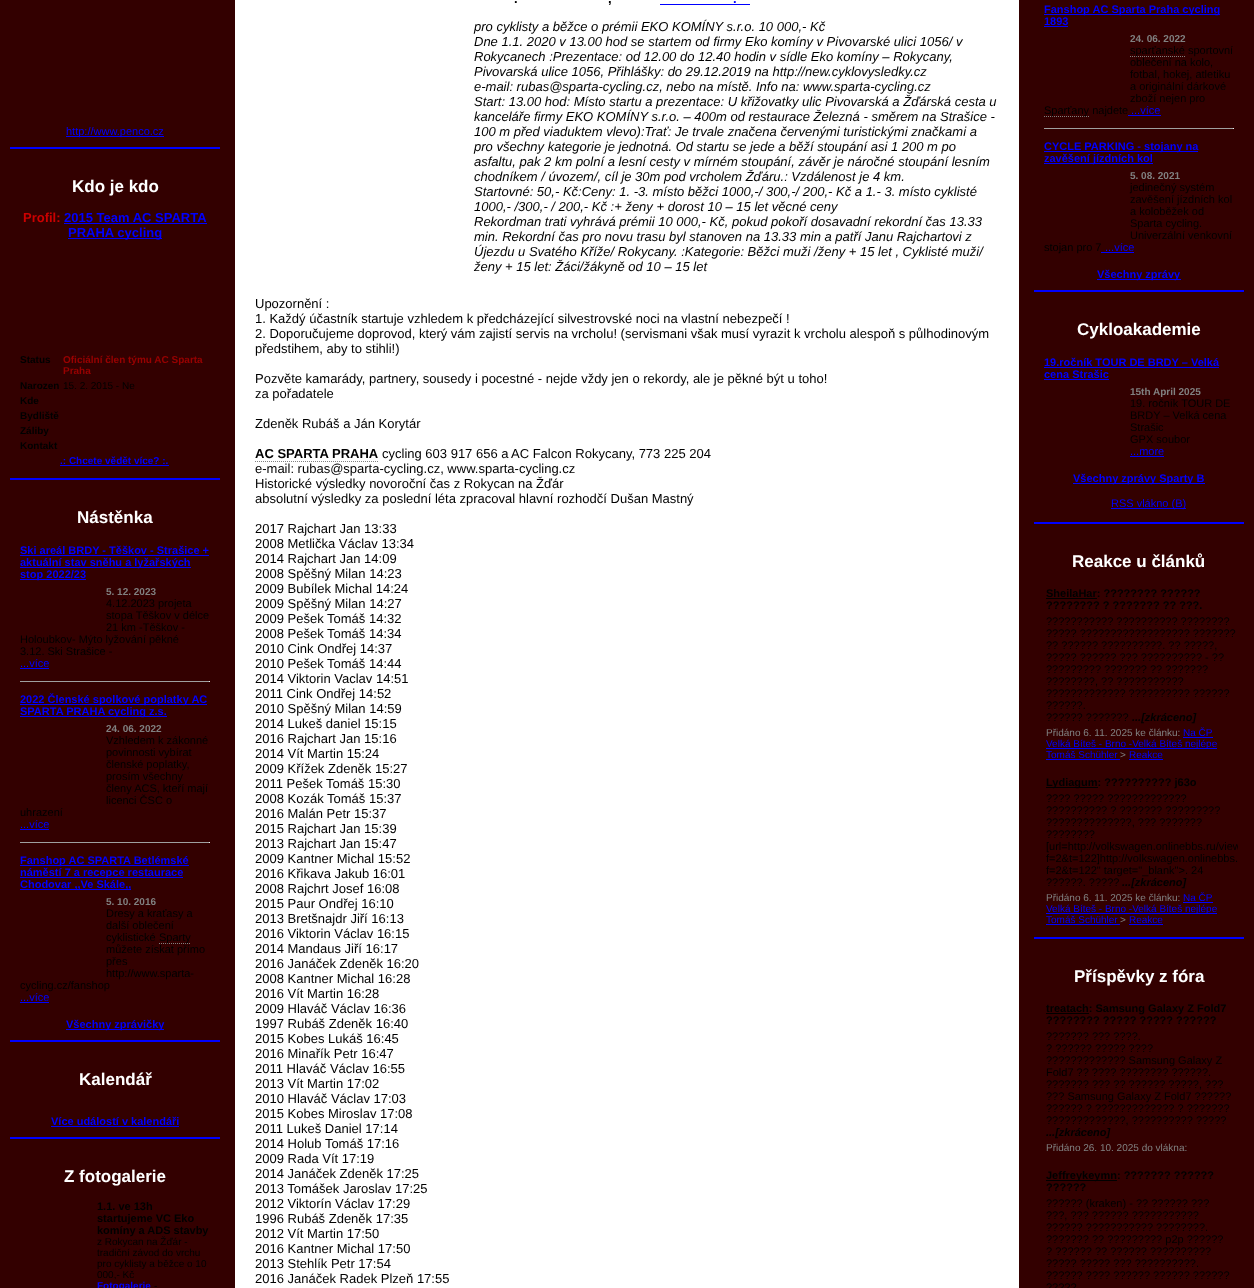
<!DOCTYPE html>
<meta charset="utf-8">
<style>body { margin: 0 } canvas { display: block }</style>
<canvas id="canvas" width="1254" height="1288"></canvas>
<script type="module">
  const canvas = document.getElementById("canvas");
  const ctx = canvas.getContext("2d");
  ctx.miterLimit = 4;
  ctx.fontKerning = "normal";

  ctx.fillStyle = "#330000";
  ctx.fillRect(0, 0, 1254, 1288);
  ctx.fillStyle = "#0000ff";
  ctx.fillRect(10, 147, 210, 2);
  ctx.fillRect(66, 136, 98, 1);
  ctx.font = "11px Liberation Sans";
  ctx.fillText("http://www.penco.cz", 66, 135);
  ctx.fillRect(10, 478, 210, 2);
  ctx.font = "bold 17px Liberation Sans";
  ctx.fillStyle = "#ffffff";
  ctx.fillText("Kdo je kdo", 72, 192);
  ctx.font = "bold 13px Liberation Sans";
  ctx.fillStyle = "#cc0000";
  ctx.fillText("Profil:", 23, 222);
  ctx.fillStyle = "#0000ff";
  ctx.fillText("2015 Team AC SPARTA", 64, 222);
  ctx.fillRect(64, 223, 143, 1);
  ctx.fillRect(68, 238, 94, 1);
  ctx.fillText("PRAHA cycling", 68, 237);
  ctx.font = "bold 10px Liberation Sans";
  ctx.fillStyle = "#000000";
  ctx.fillText("Status", 20, 363);
  ctx.fillStyle = "#990000";
  ctx.fillText("Oficiální člen týmu AC Sparta", 63, 363);
  ctx.fillText("Praha", 63, 374);
  ctx.fillStyle = "#000000";
  ctx.fillText("Narozen", 20, 389);
  ctx.font = "10px Liberation Sans";
  ctx.fillText("15. 2. 2015 - Ne", 63, 389);
  ctx.font = "bold 10px Liberation Sans";
  ctx.fillText("Kde", 20, 404);
  ctx.fillText("Bydliště", 20, 419);
  ctx.fillText("Záliby", 20, 434);
  ctx.fillText("Kontakt", 20, 449);
  ctx.fillStyle = "#0000ff";
  ctx.fillText(".: Chcete vědět více? :.", 60, 464);
  ctx.fillRect(60, 465, 109, 1);
  ctx.fillRect(10, 1040, 210, 2);
  ctx.font = "bold 17px Liberation Sans";
  ctx.fillStyle = "#ffffff";
  ctx.fillText("Nástěnka", 77, 523);
  ctx.font = "bold 11px Liberation Sans";
  ctx.fillStyle = "#0000ff";
  ctx.fillText("Ski areál BRDY - Těškov - Strašice +", 20, 554);
  ctx.fillRect(20, 555, 189, 1);
  ctx.fillRect(20, 567, 171, 1);
  ctx.fillText("aktuální stav sněhu a lyžařských", 20, 566);
  ctx.fillRect(20, 579, 66, 1);
  ctx.fillText("stop 2022/23", 20, 578);
  ctx.font = "bold 10px Liberation Sans";
  ctx.fillStyle = "#808080";
  ctx.fillText("5. 12. 2023", 106, 595);
  ctx.font = "11px Liberation Sans";
  ctx.fillStyle = "#000000";
  ctx.fillText("4.12.2023 projeta", 106, 607);
  ctx.fillText("stopa Těškov v délce", 106, 619);
  ctx.fillText("21 km -Těškov -", 106, 631);
  ctx.fillText("Holoubkov- Mýto lyžování pěkné", 20, 643);
  ctx.fillText("3.12. Ski Strašice -", 20, 655);
  ctx.fillStyle = "#0000ff";
  ctx.fillText("...více", 20, 667);
  ctx.fillRect(20, 668, 29, 1);
  ctx.fillStyle = "#9f9f9f";
  ctx.fillRect(20, 681, 190, 1);
  ctx.fillStyle = "#eeeeee";
  ctx.fillRect(209, 681, 1, 1);
  ctx.fillStyle = "#0000ff";
  ctx.fillRect(20, 704, 187, 1);
  ctx.font = "bold 11px Liberation Sans";
  ctx.fillText("2022 Členské spolkové poplatky AC", 20, 703);
  ctx.fillRect(20, 716, 147, 1);
  ctx.fillText("SPARTA PRAHA cycling z.s.", 20, 715);
  ctx.font = "bold 10px Liberation Sans";
  ctx.fillStyle = "#808080";
  ctx.fillText("24. 06. 2022", 106, 732);
  ctx.font = "11px Liberation Sans";
  ctx.fillStyle = "#000000";
  ctx.fillText("Vzhledem k zákonné", 106, 744);
  ctx.fillText("povinnosti vybírat", 106, 756);
  ctx.fillText("členské poplatky,", 106, 768);
  ctx.fillText("prosím všechny", 106, 780);
  ctx.fillText("členy ACS, kteří mají", 106, 792);
  ctx.fillText("licenci ČSC o", 106, 804);
  ctx.fillText("uhrazení", 20, 816);
  ctx.fillStyle = "#0000ff";
  ctx.fillText("...více", 20, 828);
  ctx.fillRect(20, 829, 29, 1);
  ctx.fillStyle = "#9f9f9f";
  ctx.fillRect(20, 842, 190, 1);
  ctx.fillStyle = "#eeeeee";
  ctx.fillRect(209, 842, 1, 1);
  ctx.fillStyle = "#0000ff";
  ctx.fillRect(20, 865, 169, 1);
  ctx.font = "bold 11px Liberation Sans";
  ctx.fillText("Fanshop AC SPARTA Betlémské", 20, 864);
  ctx.fillRect(20, 877, 163, 1);
  ctx.fillText("náměstí 7 a recepce restaurace", 20, 876);
  ctx.fillRect(20, 889, 111, 1);
  ctx.fillText("Chodovar ,,Ve Skále,,", 20, 888);
  ctx.font = "bold 10px Liberation Sans";
  ctx.fillStyle = "#808080";
  ctx.fillText("5. 10. 2016", 106, 905);
  ctx.font = "11px Liberation Sans";
  ctx.fillStyle = "#000000";
  ctx.fillText("Dresy a kraťasy a", 106, 917);
  ctx.fillText("další oblečení", 106, 929);
  ctx.fillText("cyklistické", 106, 941);
  ctx.beginPath();
  ctx.moveTo(159, 943.5);
  ctx.lineTo(190, 943.5);
  ctx.strokeStyle = "#808080";
  ctx.setLineDash([1, 1]);
  ctx.stroke();
  ctx.fillText("Sparty", 159, 941);
  ctx.fillText("můžete získat přímo", 106, 953);
  ctx.fillText("přes", 106, 965);
  ctx.fillText("http://www.sparta-", 106, 977);
  ctx.fillText("cycling.cz/fanshop", 20, 989);
  ctx.fillStyle = "#0000ff";
  ctx.fillText("...více", 20, 1001);
  ctx.fillRect(20, 1002, 29, 1);
  ctx.fillRect(66, 1029, 98, 1);
  ctx.font = "bold 11px Liberation Sans";
  ctx.fillText("Všechny zprávičky", 66, 1028);
  ctx.fillRect(10, 1137, 210, 2);
  ctx.font = "bold 17px Liberation Sans";
  ctx.fillStyle = "#ffffff";
  ctx.fillText("Kalendář", 79, 1085);
  ctx.font = "bold 11px Liberation Sans";
  ctx.fillStyle = "#0000ff";
  ctx.fillText("Více událostí v kalendáři", 51, 1125);
  ctx.fillRect(51, 1126, 128, 1);
  ctx.font = "bold 17px Liberation Sans";
  ctx.fillStyle = "#ffffff";
  ctx.fillText("Z fotogalerie", 64, 1182);
  ctx.font = "bold 11px Liberation Sans";
  ctx.fillStyle = "#000000";
  ctx.fillText("1.1. ve 13h", 97, 1210);
  ctx.fillText("startujeme VC Eko", 97, 1222);
  ctx.fillText("komíny a ADS stavby", 97, 1234);
  ctx.font = "10px Liberation Sans";
  ctx.fillText("z Rokycan na Žďár -", 97, 1245);
  ctx.fillText("tradiční závod do vrchu", 97, 1256);
  ctx.fillText("pro cyklisty a běžce o 10", 97, 1267);
  ctx.fillText("000,- Kč", 97, 1278);
  ctx.font = "bold 10px Liberation Sans";
  ctx.fillStyle = "#0000ff";
  ctx.fillText("Fotogalerie", 97, 1289);
  ctx.font = "10px Liberation Sans";
  ctx.fillStyle = "#000000";
  ctx.fillText("-", 154, 1289);
  ctx.fillStyle = "#ffffff";
  ctx.fillRect(235, 0, 784, 1288);
  ctx.font = "bold 13px Liberation Sans";
  ctx.fillStyle = "#000000";
  ctx.fillText(".", 514, 3);
  ctx.fillText(",", 608, 3);
  ctx.fillStyle = "#0000ff";
  ctx.fillText(".", 733, 3);
  ctx.fillRect(660, 4, 90, 1);
  ctx.font = "italic 13px Liberation Sans";
  ctx.fillStyle = "#000000";
  ctx.fillText("pro cyklisty a běžce o prémii EKO KOMÍNY s.r.o. 10 000,- Kč", 474, 31);
  ctx.fillText("Dne 1.1. 2020 v 13.00 hod se startem od firmy Eko komíny v Pivovarské ulici 1056/ v", 474, 46);
  ctx.fillText("Rokycanech :Prezentace: od 12.00 do 12.40 hodin v sídle Eko komíny – Rokycany,", 474, 61);
  ctx.fillText("Pivovarská ulice 1056, Přihlášky: do 29.12.2019 na http://new.cyklovysledky.cz", 474, 76);
  ctx.fillText("e-mail: rubas@sparta-cycling.cz, nebo na místě. Info na: www.sparta-cycling.cz", 474, 91);
  ctx.fillText("Start: 13.00 hod: Místo startu a prezentace: U křižovatky ulic Pivovarská a Žďárská cesta u", 474, 106);
  ctx.fillText("kanceláře firmy EKO KOMÍNY s.r.o. – 400m od restaurace Železná - směrem na Strašice -", 474, 121);
  ctx.fillText("100 m před viaduktem vlevo):Trať: Je trvale značena červenými turistickými značkami a", 474, 136);
  ctx.fillText("pro všechny kategorie je jednotná. Od startu se jede a běží stoupání asi 1 200 m po", 474, 151);
  ctx.fillText("asfaltu, pak 2 km polní a lesní cesty v mírném stoupání, závěr je náročné stoupání lesním", 474, 166);
  ctx.fillText("chodníkem / úvozem/, cíl je 30m pod vrcholem Žďáru.: Vzdálenost je 4 km.", 474, 181);
  ctx.fillText("Startovné: 50,- Kč:Ceny: 1. -3. místo běžci 1000,-/ 300,-/ 200,- Kč a 1.- 3. místo cyklisté", 474, 196);
  ctx.fillText("1000,- /300,- / 200,- Kč :+ ženy + dorost 10 – 15 let věcné ceny", 474, 211);
  ctx.fillText("Rekordman trati vyhrává prémii 10 000,- Kč, pokud pokoří dosavadní rekordní čas 13.33", 474, 226);
  ctx.fillText("min. Rekordní čas pro novu trasu byl stanoven na 13.33 min a patří Janu Rajchartovi z", 474, 241);
  ctx.fillText("Újezdu u Svatého Kříže/ Rokycany. :Kategorie: Běžci muži /ženy + 15 let , Cyklisté muži/", 474, 256);
  ctx.fillText("ženy + 15 let: Žáci/žákyně od 10 – 15 let", 474, 271);
  ctx.font = "13px Liberation Sans";
  ctx.fillText("Upozornění :", 255, 308);
  ctx.fillText("1. Každý účastník startuje vzhledem k předcházející silvestrovské noci na vlastní nebezpečí !", 255, 323);
  ctx.fillText("2. Doporučujeme doprovod, který vám zajistí servis na vrcholu! (servismani však musí vyrazit k vrcholu alespoň s půlhodinovým", 255, 338);
  ctx.fillText("předstihem, aby to stihli!)", 255, 353);
  ctx.fillText("Pozvěte kamarády, partnery, sousedy i pocestné - nejde vždy jen o rekordy, ale je pěkné být u toho!", 255, 383);
  ctx.fillText("za pořadatele", 255, 398);
  ctx.fillText("Zdeněk Rubáš a Ján Korytár", 255, 428);
  ctx.font = "bold 13px Liberation Sans";
  ctx.fillText("AC SPARTA PRAHA", 255, 458);
  ctx.beginPath();
  ctx.moveTo(255, 461.5);
  ctx.lineTo(378, 461.5);
  ctx.stroke();
  ctx.font = "13px Liberation Sans";
  ctx.fillText("cycling 603 917 656 a", 382, 458);
  ctx.fillText("AC Falcon Rokycany, 773 225 204", 511, 458);
  ctx.fillText("e-mail: rubas@sparta-cycling.cz, www.sparta-cycling.cz", 255, 473);
  ctx.fillText("Historické výsledky novoroční čas z Rokycan na Žďár", 255, 488);
  ctx.fillText("absolutní výsledky za poslední léta zpracoval hlavní rozhodčí Dušan Mastný", 255, 503);
  ctx.fillText("2017 Rajchart Jan 13:33", 255, 533);
  ctx.fillText("2008 Metlička Václav 13:34", 255, 548);
  ctx.fillText("2014 Rajchart Jan 14:09", 255, 563);
  ctx.fillText("2008 Spěšný Milan 14:23", 255, 578);
  ctx.fillText("2009 Bubílek Michal 14:24", 255, 593);
  ctx.fillText("2009 Spěšný Milan 14:27", 255, 608);
  ctx.fillText("2009 Pešek Tomáš 14:32", 255, 623);
  ctx.fillText("2008 Pešek Tomáš 14:34", 255, 638);
  ctx.fillText("2010 Cink Ondřej 14:37", 255, 653);
  ctx.fillText("2010 Pešek Tomáš 14:44", 255, 668);
  ctx.fillText("2014 Viktorin Vaclav 14:51", 255, 683);
  ctx.fillText("2011 Cink Ondřej 14:52", 255, 698);
  ctx.fillText("2010 Spěšný Milan 14:59", 255, 713);
  ctx.fillText("2014 Lukeš daniel 15:15", 255, 728);
  ctx.fillText("2016 Rajchart Jan 15:16", 255, 743);
  ctx.fillText("2014 Vít Martin 15:24", 255, 758);
  ctx.fillText("2009 Křížek Zdeněk 15:27", 255, 773);
  ctx.fillText("2011 Pešek Tomáš 15:30", 255, 788);
  ctx.fillText("2008 Kozák Tomáš 15:37", 255, 803);
  ctx.fillText("2016 Malán Petr 15:37", 255, 818);
  ctx.fillText("2015 Rajchart Jan 15:39", 255, 833);
  ctx.fillText("2013 Rajchart Jan 15:47", 255, 848);
  ctx.fillText("2009 Kantner Michal 15:52", 255, 863);
  ctx.fillText("2016 Křikava Jakub 16:01", 255, 878);
  ctx.fillText("2008 Rajchrt Josef 16:08", 255, 893);
  ctx.fillText("2015 Paur Ondřej 16:10", 255, 908);
  ctx.fillText("2013 Bretšnajdr Jiří 16:13", 255, 923);
  ctx.fillText("2016 Viktorin Václav 16:15", 255, 938);
  ctx.fillText("2014 Mandaus Jiří 16:17", 255, 953);
  ctx.fillText("2016 Janáček Zdeněk 16:20", 255, 968);
  ctx.fillText("2008 Kantner Michal 16:28", 255, 983);
  ctx.fillText("2016 Vít Martin 16:28", 255, 998);
  ctx.fillText("2009 Hlaváč Václav 16:36", 255, 1013);
  ctx.fillText("1997 Rubáš Zdeněk 16:40", 255, 1028);
  ctx.fillText("2015 Kobes Lukáš 16:45", 255, 1043);
  ctx.fillText("2016 Minařík Petr 16:47", 255, 1058);
  ctx.fillText("2011 Hlaváč Václav 16:55", 255, 1073);
  ctx.fillText("2013 Vít Martin 17:02", 255, 1088);
  ctx.fillText("2010 Hlaváč Václav 17:03", 255, 1103);
  ctx.fillText("2015 Kobes Miroslav 17:08", 255, 1118);
  ctx.fillText("2011 Lukeš Daniel 17:14", 255, 1133);
  ctx.fillText("2014 Holub Tomáš 17:16", 255, 1148);
  ctx.fillText("2009 Rada Vít 17:19", 255, 1163);
  ctx.fillText("2014 Janáček Zdeněk 17:25", 255, 1178);
  ctx.fillText("2013 Tomášek Jaroslav 17:25", 255, 1193);
  ctx.fillText("2012 Viktorín Václav 17:29", 255, 1208);
  ctx.fillText("1996 Rubáš Zdeněk 17:35", 255, 1223);
  ctx.fillText("2012 Vít Martin 17:50", 255, 1238);
  ctx.fillText("2016 Kantner Michal 17:50", 255, 1253);
  ctx.fillText("2013 Stehlík Petr 17:54", 255, 1268);
  ctx.fillText("2016 Janáček Radek Plzeň 17:55", 255, 1283);
  ctx.fillStyle = "#0000ff";
  ctx.fillRect(1034, 290, 210, 2);
  ctx.fillRect(1044, 14, 176, 1);
  ctx.font = "bold 11px Liberation Sans";
  ctx.fillText("Fanshop AC Sparta Praha cycling", 1044, 13);
  ctx.fillText("1893", 1044, 25);
  ctx.fillRect(1044, 26, 24, 1);
  ctx.font = "bold 10px Liberation Sans";
  ctx.fillStyle = "#808080";
  ctx.fillText("24. 06. 2022", 1130, 42);
  ctx.beginPath();
  ctx.moveTo(1130, 56.5);
  ctx.lineTo(1185, 56.5);
  ctx.stroke();
  ctx.font = "11px Liberation Sans";
  ctx.fillStyle = "#000000";
  ctx.fillText("sparťanské sportovní", 1130, 54);
  ctx.fillText("oblečení na kolo,", 1130, 66);
  ctx.fillText("fotbal, hokej, atletiku", 1130, 78);
  ctx.fillText("a originální dárkové", 1130, 90);
  ctx.fillText("zboží nejen pro", 1130, 102);
  ctx.beginPath();
  ctx.moveTo(1044, 116.5);
  ctx.lineTo(1089, 116.5);
  ctx.stroke();
  ctx.fillText("Sparťany najdete", 1044, 114);
  ctx.fillStyle = "#0000ff";
  ctx.fillText("...více", 1131, 114);
  ctx.fillRect(1128, 115, 33, 1);
  ctx.fillStyle = "#9f9f9f";
  ctx.fillRect(1044, 128, 190, 1);
  ctx.fillStyle = "#eeeeee";
  ctx.fillRect(1233, 128, 1, 1);
  ctx.fillStyle = "#0000ff";
  ctx.fillRect(1044, 151, 154, 1);
  ctx.font = "bold 11px Liberation Sans";
  ctx.fillText("CYCLE PARKING - stojany na", 1044, 150);
  ctx.fillRect(1044, 163, 109, 1);
  ctx.fillText("zavěšení jízdních kol", 1044, 162);
  ctx.font = "bold 10px Liberation Sans";
  ctx.fillStyle = "#808080";
  ctx.fillText("5. 08. 2021", 1130, 179);
  ctx.font = "11px Liberation Sans";
  ctx.fillStyle = "#000000";
  ctx.fillText("jedinečný systém", 1130, 191);
  ctx.fillText("zavěšení jízdních kol", 1130, 203);
  ctx.fillText("a koloběžek od", 1130, 215);
  ctx.fillText("Sparta cycling.", 1130, 227);
  ctx.fillText("Univerzální venkovní", 1130, 239);
  ctx.fillText("stojan pro 7", 1044, 251);
  ctx.fillStyle = "#0000ff";
  ctx.fillText("...více", 1105, 251);
  ctx.fillRect(1101, 252, 33, 1);
  ctx.fillRect(1097, 279, 84, 1);
  ctx.font = "bold 11px Liberation Sans";
  ctx.fillText("Všechny zprávy", 1097, 278);
  ctx.fillRect(1034, 522, 210, 2);
  ctx.font = "bold 17px Liberation Sans";
  ctx.fillStyle = "#ffffff";
  ctx.fillText("Cykloakademie", 1077, 335);
  ctx.font = "bold 11px Liberation Sans";
  ctx.fillStyle = "#0000ff";
  ctx.fillText("19.ročník TOUR DE BRDY – Velká", 1044, 366);
  ctx.fillRect(1044, 367, 175, 1);
  ctx.fillText("cena Strašic", 1044, 378);
  ctx.fillRect(1044, 379, 65, 1);
  ctx.font = "bold 10px Liberation Sans";
  ctx.fillStyle = "#808080";
  ctx.fillText("15th April 2025", 1130, 395);
  ctx.font = "11px Liberation Sans";
  ctx.fillStyle = "#000000";
  ctx.fillText("19. ročník TOUR DE", 1130, 407);
  ctx.fillText("BRDY – Velká cena", 1130, 419);
  ctx.fillText("Strašic", 1130, 431);
  ctx.fillText("GPX soubor", 1130, 443);
  ctx.fillStyle = "#0000ff";
  ctx.fillText("...more", 1130, 455);
  ctx.fillRect(1130, 456, 34, 1);
  ctx.fillRect(1073, 483, 132, 1);
  ctx.font = "bold 11px Liberation Sans";
  ctx.fillText("Všechny zprávy Sparty B", 1073, 482);
  ctx.fillRect(1111, 508, 75, 1);
  ctx.font = "11px Liberation Sans";
  ctx.fillText("RSS vlákno (B)", 1111, 507);
  ctx.fillRect(1034, 937, 210, 2);
  ctx.font = "bold 17px Liberation Sans";
  ctx.fillStyle = "#ffffff";
  ctx.fillText("Reakce u článků", 1072, 567);
  ctx.font = "bold 11px Liberation Sans";
  ctx.fillStyle = "#000000";
  ctx.fillText("SheilaHar: ???????? ??????", 1046, 597);
  ctx.fillRect(1046, 598, 51, 1);
  ctx.fillText("???????? ? ??????? ?? ???.", 1046, 609);
  ctx.font = "11px Liberation Sans";
  ctx.fillText("??????????? ?????????? ????????", 1046, 625);
  ctx.fillText("????? ?????????????????? ???????", 1046, 637);
  ctx.fillText("?? ?????? ??????????. ?? ?????,", 1046, 649);
  ctx.fillText("????? ?????? ??? ?????????? - ??", 1046, 661);
  ctx.fillText("????????? ??????? ?? ???????", 1046, 673);
  ctx.fillText("????????, ?? ???????????", 1046, 685);
  ctx.fillText("????????????? ?????????? ??????", 1046, 697);
  ctx.fillText("??????.", 1046, 709);
  ctx.fillText("?????? ???????", 1046, 721);
  ctx.font = "italic bold 11px Liberation Sans";
  ctx.fillText("...[zkráceno]", 1132, 721);
  ctx.font = "10px Liberation Sans";
  ctx.fillStyle = "#808080";
  ctx.fillText("Přidáno 6. 11. 2025 ke článku:", 1046, 736);
  ctx.fillStyle = "#0000ff";
  ctx.fillText("Na ČP", 1183, 736);
  ctx.fillRect(1183, 737, 30, 1);
  ctx.fillRect(1046, 748, 171, 1);
  ctx.fillText("Velká Bíteš - Brno -Velká Bíteš nejlépe", 1046, 747);
  ctx.fillText("Tomáš Schühler", 1046, 758);
  ctx.fillStyle = "#808080";
  ctx.fillText(">", 1120, 758);
  ctx.fillStyle = "#0000ff";
  ctx.fillRect(1046, 759, 74, 1);
  ctx.fillText("Reakce", 1129, 758);
  ctx.fillRect(1129, 759, 34, 1);
  ctx.fillStyle = "#000000";
  ctx.fillRect(1046, 787, 52, 1);
  ctx.font = "bold 11px Liberation Sans";
  ctx.fillText("Lydiagum: ?????????? j63o", 1046, 786);
  ctx.font = "11px Liberation Sans";
  ctx.fillText("???? ????? ?????????????", 1046, 802);
  ctx.fillText("?????????? ? ??????? ?????????", 1046, 814);
  ctx.fillText("??????????????, ??? ???????", 1046, 826);
  ctx.fillText("????????", 1046, 838);
  ctx.save();
  ctx.beginPath();
  ctx.rect(1044, 790, 194, 100);
  ctx.clip();
  ctx.fillText("[url=http://volkswagen.onlinebbs.ru/view", 1046, 850);
  ctx.restore();
  ctx.fillText("f=2&t=122]http://volkswagen.onlinebbs.", 1046, 862);
  ctx.fillText("f=2&t=122\" target=\"_blank\">. 24", 1046, 874);
  ctx.fillText("??????. ?????", 1046, 886);
  ctx.font = "italic bold 11px Liberation Sans";
  ctx.fillText("...[zkráceno]", 1122, 886);
  ctx.font = "10px Liberation Sans";
  ctx.fillStyle = "#808080";
  ctx.fillText("Přidáno 6. 11. 2025 ke článku:", 1046, 901);
  ctx.fillStyle = "#0000ff";
  ctx.fillText("Na ČP", 1183, 901);
  ctx.fillRect(1183, 902, 30, 1);
  ctx.fillRect(1046, 913, 171, 1);
  ctx.fillText("Velká Bíteš - Brno -Velká Bíteš nejlépe", 1046, 912);
  ctx.fillText("Tomáš Schühler", 1046, 923);
  ctx.fillStyle = "#808080";
  ctx.fillText(">", 1120, 923);
  ctx.fillStyle = "#0000ff";
  ctx.fillRect(1046, 924, 74, 1);
  ctx.fillText("Reakce", 1129, 923);
  ctx.fillRect(1129, 924, 34, 1);
  ctx.font = "bold 17px Liberation Sans";
  ctx.fillStyle = "#ffffff";
  ctx.fillText("Příspěvky z fóra", 1074, 982);
  ctx.fillStyle = "#000000";
  ctx.fillRect(1046, 1013, 43, 1);
  ctx.font = "bold 11px Liberation Sans";
  ctx.fillText("treatach: Samsung Galaxy Z Fold7", 1046, 1012);
  ctx.fillText("???????? ????? ????? ??????", 1046, 1024);
  ctx.font = "11px Liberation Sans";
  ctx.fillText("??????? ??? ????.", 1046, 1040);
  ctx.fillText("? ?????? ????? ????", 1046, 1052);
  ctx.fillText("????????????? Samsung Galaxy Z", 1046, 1064);
  ctx.fillText("Fold7 ?? ???? ???????? ??????.", 1046, 1076);
  ctx.fillText("??????? ??? ?? ?????? ?????, ???", 1046, 1088);
  ctx.fillText("??? Samsung Galaxy Z Fold7 ??????", 1046, 1100);
  ctx.fillText("?????? ? ????????????? ? ???????", 1046, 1112);
  ctx.fillText("?????????????, ?????????? ?????", 1046, 1124);
  ctx.font = "italic bold 11px Liberation Sans";
  ctx.fillText("...[zkráceno]", 1046, 1136);
  ctx.font = "10px Liberation Sans";
  ctx.fillStyle = "#808080";
  ctx.fillText("Přidáno 26. 10. 2025 do vlákna:", 1046, 1151);
  ctx.fillStyle = "#000000";
  ctx.fillRect(1046, 1180, 71, 1);
  ctx.font = "bold 11px Liberation Sans";
  ctx.fillText("Jeffreykeymn: ??????? ??????", 1046, 1179);
  ctx.fillText("??????", 1046, 1191);
  ctx.font = "11px Liberation Sans";
  ctx.fillText("?????? (kraken) - ?? ?????? ???", 1046, 1207);
  ctx.fillText("???, ??? ?????? ???????????", 1046, 1219);
  ctx.fillText("?????? ??????????? ????????.", 1046, 1231);
  ctx.fillText("??????? ?? ????????? p2p ??????", 1046, 1243);
  ctx.fillText("? ?????? ?? ?????? ??????????", 1046, 1255);
  ctx.fillText("????? ????? ??? ??????????.", 1046, 1267);
  ctx.fillText("?????? ???? ?????? ?????? ??????", 1046, 1279);
  ctx.fillText("?????", 1046, 1291);
</script>
